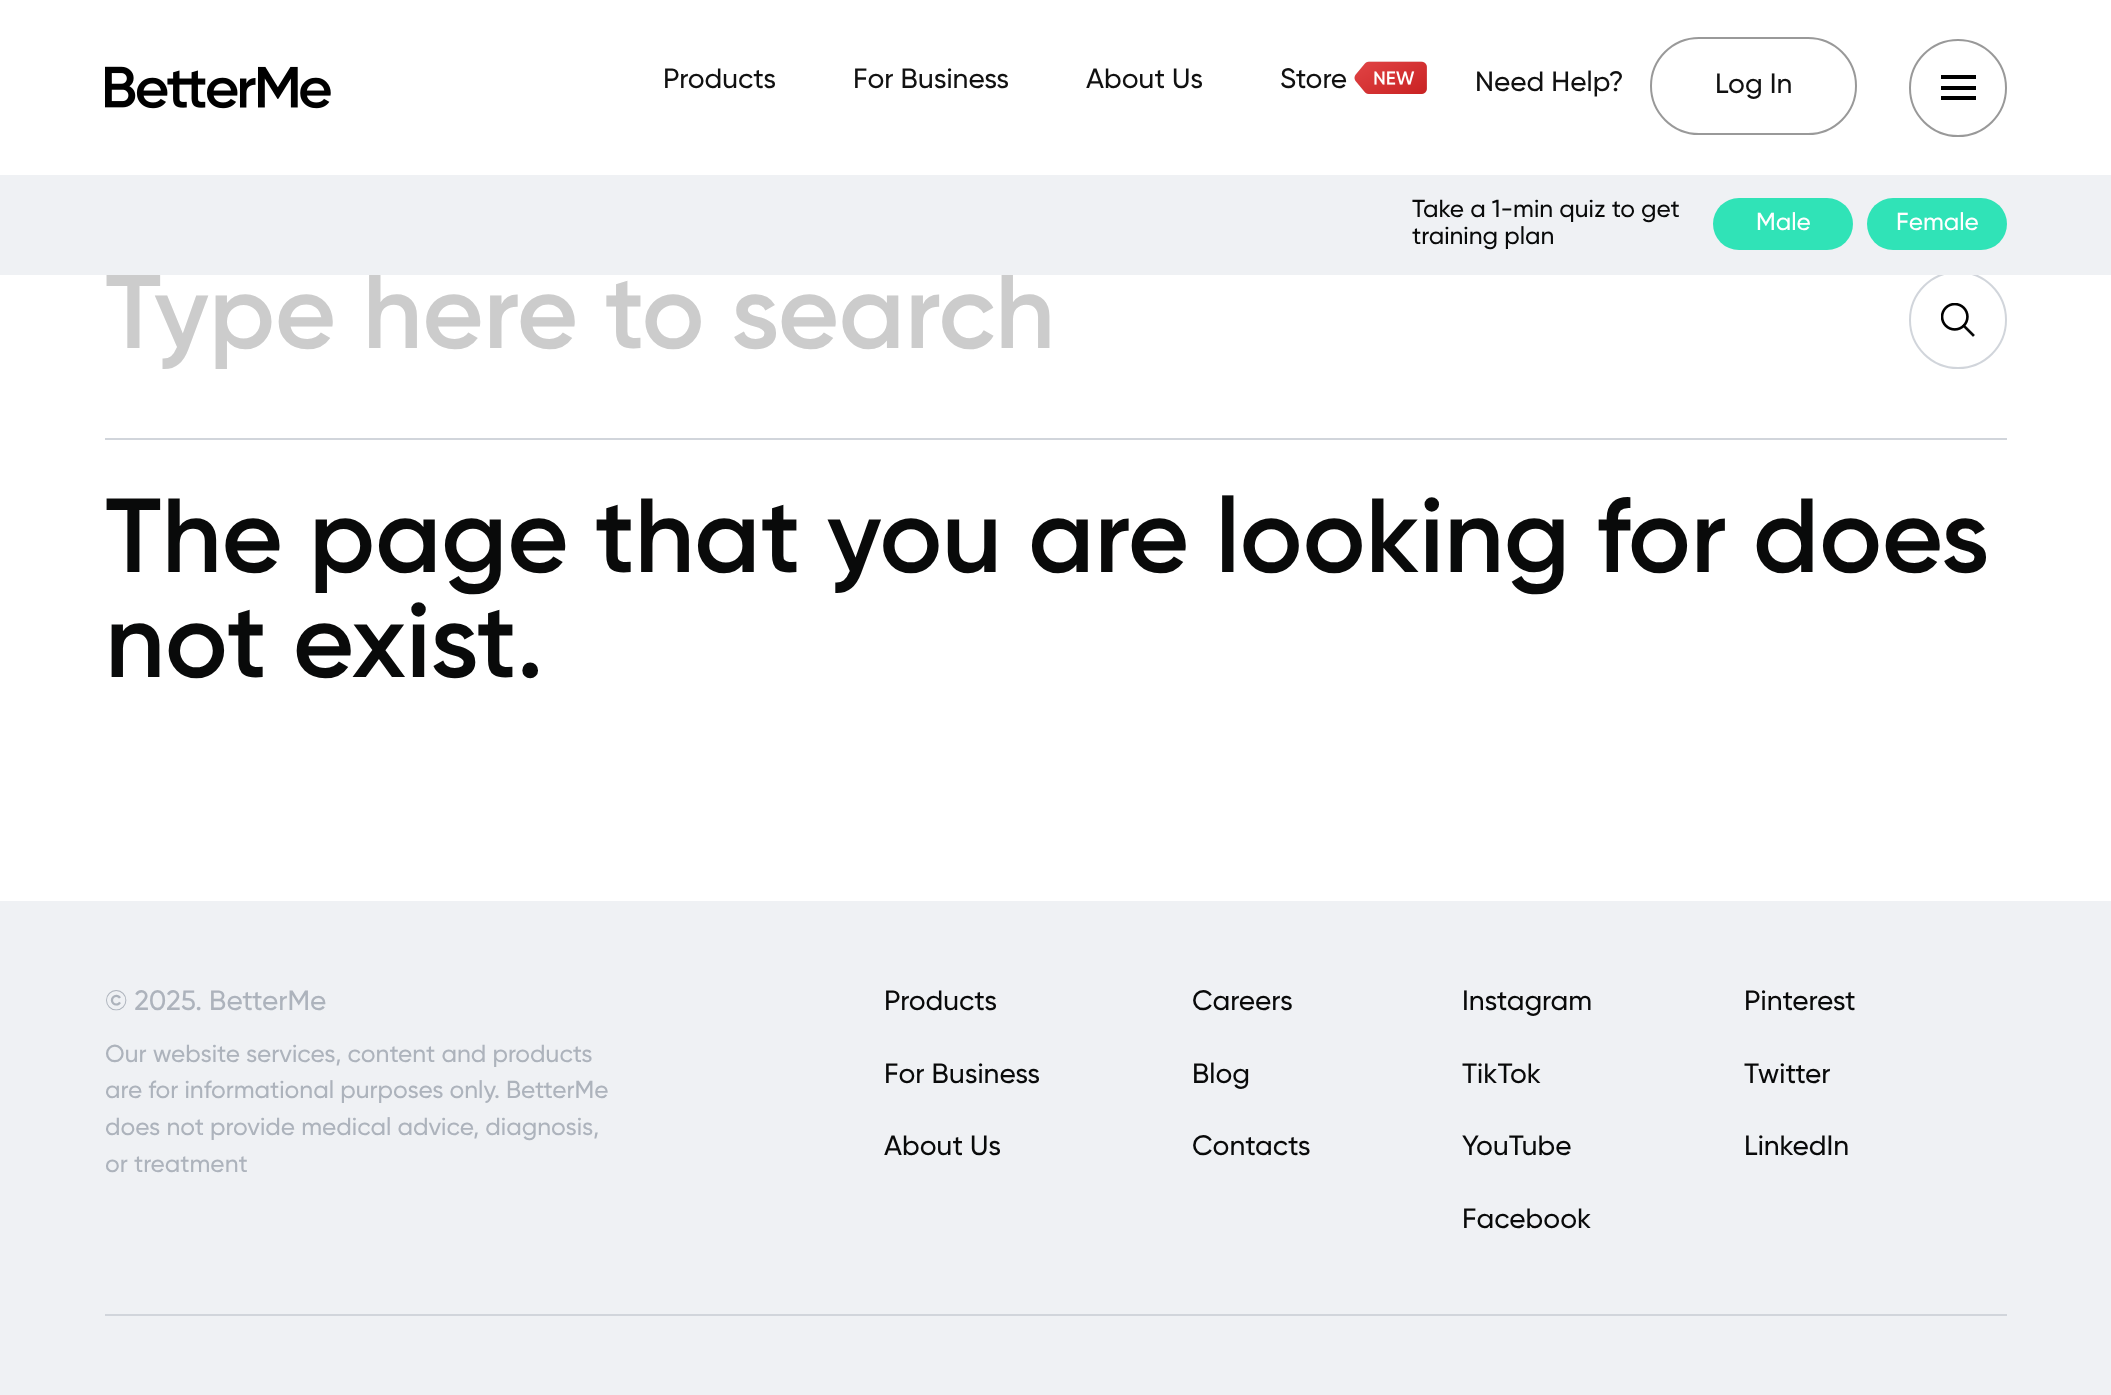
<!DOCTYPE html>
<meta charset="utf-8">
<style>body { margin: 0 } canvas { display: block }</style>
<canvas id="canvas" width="2111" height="1395"></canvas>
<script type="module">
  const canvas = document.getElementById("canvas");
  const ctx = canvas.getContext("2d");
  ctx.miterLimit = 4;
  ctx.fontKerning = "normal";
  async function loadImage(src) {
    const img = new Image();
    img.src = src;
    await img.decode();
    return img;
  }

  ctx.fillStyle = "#ffffff";
  ctx.fillRect(0, 0, 2111, 1395);
  ctx.drawImage(await loadImage("img1.png"), 105, 66, 226, 43);
  ctx.font = "500 28px Gilroy";
  ctx.fillStyle = "#111111";
  ctx.fillText("Products", 663, 88);
  ctx.fillText("For Business", 853, 88);
  ctx.fillText("About Us", 1086, 88);
  ctx.fillText("Store", 1280, 88);
  ctx.drawImage(await loadImage("img2.png"), 1354, 61, 73, 33);
  ctx.fillText("Need Help?", 1475, 91);
  ctx.beginPath();
  ctx.roundRect(1651, 38, 205, 96, 48);
  ctx.strokeStyle = "#999999";
  ctx.lineWidth = 2;
  ctx.stroke();
  ctx.fillText("Log In", 1715, 93);
  ctx.beginPath();
  ctx.arc(1958, 88, 48, 0, Math.PI * 2);
  ctx.stroke();
  ctx.fillStyle = "#000000";
  ctx.fillRect(1941, 75, 35, 4);
  ctx.fillRect(1941, 86, 35, 4);
  ctx.fillRect(1941, 96, 35, 4);
  ctx.font = "600 105px Gilroy";
  ctx.fillStyle = "#cccccc";
  ctx.fillText("Type here to search", 105, 348);
  ctx.beginPath();
  ctx.arc(1958, 320, 48, 0, Math.PI * 2);
  ctx.strokeStyle = "#d1d5db";
  ctx.stroke();
  ctx.fillStyle = "#eff1f4";
  ctx.fillRect(0, 175, 2111, 100);
  ctx.font = "500 24.5px Gilroy";
  ctx.fillStyle = "#090a0a";
  ctx.fillText("Take a 1-min quiz to get", 1412, 217);
  ctx.fillText("training plan", 1412, 244);
  ctx.fillStyle = "#30e3b7";
  ctx.beginPath();
  ctx.roundRect(1713, 198, 140, 52, 26);
  ctx.fill();
  ctx.fillStyle = "#ffffff";
  ctx.fillText("Male", 1756, 230);
  ctx.fillStyle = "#30e3b7";
  ctx.beginPath();
  ctx.roundRect(1867, 198, 140, 52, 26);
  ctx.fill();
  ctx.fillStyle = "#ffffff";
  ctx.fillText("Female", 1896, 230);
  ctx.fillStyle = "#d1d5db";
  ctx.fillRect(105, 438, 1902, 2);
  ctx.drawImage(await loadImage("img3.png"), 1941, 303, 34, 34);
  ctx.font = "600 105px Gilroy";
  ctx.fillStyle = "#090a0a";
  ctx.fillText("The page that you are looking for does", 105, 572);
  ctx.fillText("not exist.", 105, 677);
  ctx.fillStyle = "#eff1f4";
  ctx.fillRect(0, 901, 2111, 494);
  ctx.fillStyle = "#d1d5db";
  ctx.fillRect(105, 1314, 1902, 2);
  ctx.font = "500 28px Gilroy";
  ctx.fillStyle = "#adb3bc";
  ctx.fillText("© 2025. BetterMe", 105, 1010);
  ctx.font = "500 24.5px Gilroy";
  ctx.fillText("Our website services, content and products", 105, 1062);
  ctx.fillText("are for informational purposes only. BetterMe", 105, 1098);
  ctx.fillText("does not provide medical advice, diagnosis,", 105, 1135);
  ctx.fillText("or treatment", 105, 1172);
  ctx.font = "500 28px Gilroy";
  ctx.fillStyle = "#090a0a";
  ctx.fillText("Products", 884, 1010);
  ctx.fillText("Careers", 1192, 1010);
  ctx.fillText("For Business", 884, 1083);
  ctx.fillText("Blog", 1192, 1083);
  ctx.fillText("About Us", 884, 1155);
  ctx.fillText("Contacts", 1192, 1155);
  ctx.fillText("Instagram", 1462, 1010);
  ctx.fillText("Pinterest", 1744, 1010);
  ctx.fillText("TikTok", 1462, 1083);
  ctx.fillText("Twitter", 1744, 1083);
  ctx.fillText("YouTube", 1462, 1155);
  ctx.fillText("LinkedIn", 1744, 1155);
  ctx.fillText("Facebook", 1462, 1228);
</script>
